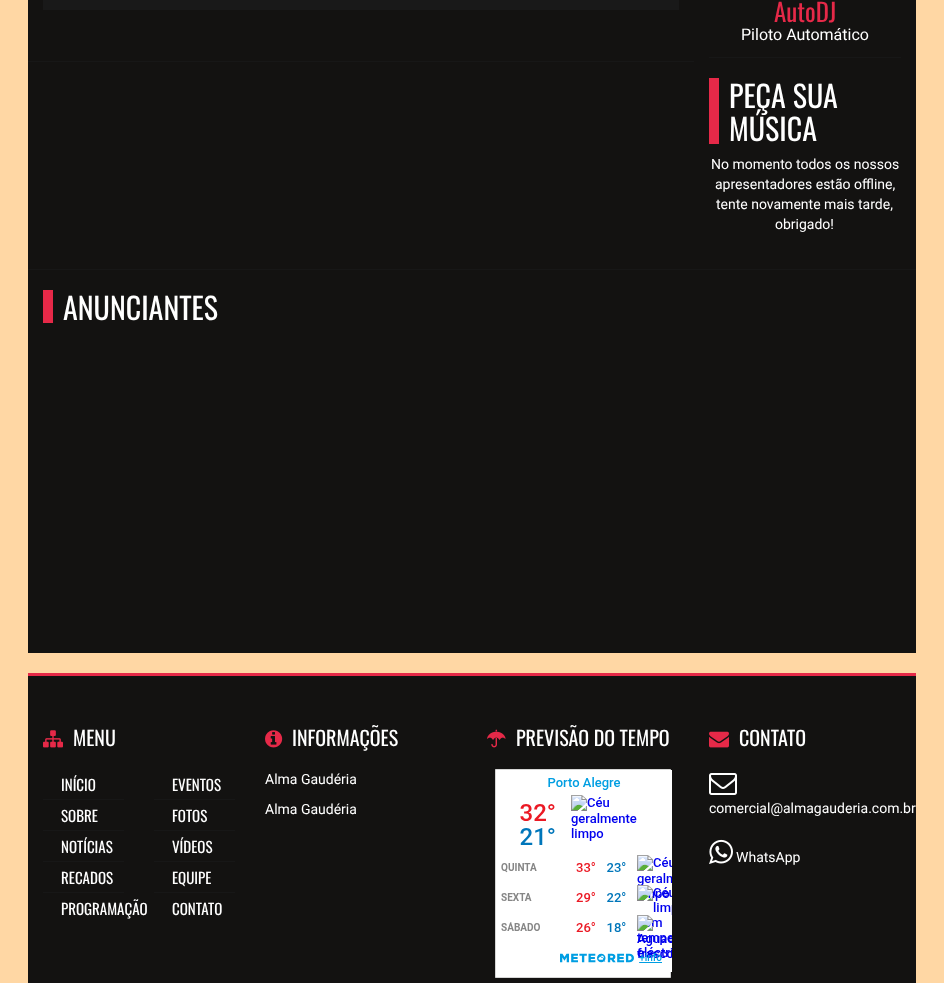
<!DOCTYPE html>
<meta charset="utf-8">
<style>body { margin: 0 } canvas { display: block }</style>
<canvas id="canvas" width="944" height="983"></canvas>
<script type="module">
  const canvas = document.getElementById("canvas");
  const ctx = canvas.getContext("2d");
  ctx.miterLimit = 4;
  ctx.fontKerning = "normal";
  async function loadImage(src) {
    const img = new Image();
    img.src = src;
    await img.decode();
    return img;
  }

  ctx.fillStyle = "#ffd7a4";
  ctx.fillRect(0, 0, 944, 983);
  ctx.fillStyle = "#131211";
  ctx.fillRect(28, 0, 888, 269);
  ctx.fillStyle = "#171717";
  ctx.fillRect(28, 269, 888, 1);
  ctx.fillStyle = "#191919";
  ctx.fillRect(43, 0, 636, 10);
  ctx.fillStyle = "#171717";
  ctx.fillRect(28, 61, 666, 1);
  ctx.fillRect(709, 57, 192, 1);
  ctx.font = "25px Oswald";
  ctx.fillStyle = "#e62948";
  ctx.fillText("AutoDJ", 774, 22);
  ctx.font = "16px Roboto";
  ctx.fillStyle = "#ffffff";
  ctx.fillText("Piloto Automático", 741, 40);
  ctx.fillStyle = "#e62948";
  ctx.fillRect(709, 78, 10, 66);
  ctx.font = "30px Oswald";
  ctx.fillStyle = "#ffffff";
  ctx.fillText("PEÇA SUA", 729, 108);
  ctx.fillText("MÚSICA", 729, 141);
  ctx.font = "14px Roboto";
  ctx.fillText("No momento todos os nossos", 711, 169);
  ctx.fillText("apresentadores estão offline,", 715, 189);
  ctx.fillText("tente novamente mais tarde,", 716, 209);
  ctx.fillText("obrigado!", 775, 229);
  ctx.fillStyle = "#131211";
  ctx.fillRect(28, 270, 888, 383);
  ctx.fillStyle = "#e62948";
  ctx.fillRect(43, 290, 10, 33);
  ctx.font = "30px Oswald";
  ctx.fillStyle = "#ffffff";
  ctx.fillText("ANUNCIANTES", 63, 320);
  ctx.fillStyle = "#131211";
  ctx.fillRect(28, 676, 888, 307);
  ctx.fillStyle = "#e62948";
  ctx.fillRect(28, 673, 888, 3);
  ctx.drawImage(await loadImage("img1.png"), 43, 730, 20, 18);
  ctx.font = "20px Oswald";
  ctx.fillStyle = "#ffffff";
  ctx.fillText("MENU", 73, 746);
  ctx.fillStyle = "#171717";
  ctx.fillRect(43, 799, 81, 1);
  ctx.font = "15px Oswald";
  ctx.fillStyle = "#ffffff";
  ctx.fillText("INÍCIO", 61, 791);
  ctx.fillStyle = "#171717";
  ctx.fillRect(43, 830, 81, 1);
  ctx.fillStyle = "#ffffff";
  ctx.fillText("SOBRE", 61, 822);
  ctx.fillStyle = "#171717";
  ctx.fillRect(43, 861, 81, 1);
  ctx.fillStyle = "#ffffff";
  ctx.fillText("NOTÍCIAS", 61, 853);
  ctx.fillStyle = "#171717";
  ctx.fillRect(43, 892, 81, 1);
  ctx.fillStyle = "#ffffff";
  ctx.fillText("RECADOS", 61, 884);
  ctx.fillText("PROGRAMAÇÃO", 61, 915);
  ctx.fillStyle = "#171717";
  ctx.fillRect(154, 799, 81, 1);
  ctx.fillStyle = "#ffffff";
  ctx.fillText("EVENTOS", 172, 791);
  ctx.fillStyle = "#171717";
  ctx.fillRect(154, 830, 81, 1);
  ctx.fillStyle = "#ffffff";
  ctx.fillText("FOTOS", 172, 822);
  ctx.fillStyle = "#171717";
  ctx.fillRect(154, 861, 81, 1);
  ctx.fillStyle = "#ffffff";
  ctx.fillText("VÍDEOS", 172, 853);
  ctx.fillStyle = "#171717";
  ctx.fillRect(154, 892, 81, 1);
  ctx.fillStyle = "#ffffff";
  ctx.fillText("EQUIPE", 172, 884);
  ctx.fillText("CONTATO", 172, 915);
  ctx.drawImage(await loadImage("img2.png"), 265, 730, 18, 18);
  ctx.font = "20px Oswald";
  ctx.fillText("INFORMAÇÕES", 292, 746);
  ctx.font = "14px Roboto";
  ctx.fillText("Alma Gaudéria", 265, 784);
  ctx.fillText("Alma Gaudéria", 265, 814);
  ctx.drawImage(await loadImage("img3.png"), 487, 729, 19, 19);
  ctx.font = "20px Oswald";
  ctx.fillText("PREVISÃO DO TEMPO", 516, 746);
  ctx.beginPath();
  ctx.rect(495.5, 769.5, 175, 208);
  ctx.fill();
  ctx.strokeStyle = "#d6d6d6";
  ctx.stroke();
  ctx.drawImage(await loadImage("img4.png"), 501, 770, 171, 202);
  ctx.drawImage(await loadImage("img5.png"), 709, 731, 20, 17);
  ctx.fillText("CONTATO", 739, 746);
  ctx.drawImage(await loadImage("img6.png"), 709, 773, 28, 22);
  ctx.font = "14px Roboto";
  ctx.fillText("comercial@almagauderia.com.br", 709, 813);
  ctx.drawImage(await loadImage("img7.png"), 709, 839, 24, 25);
  ctx.fillText("WhatsApp", 736, 862);
</script>
